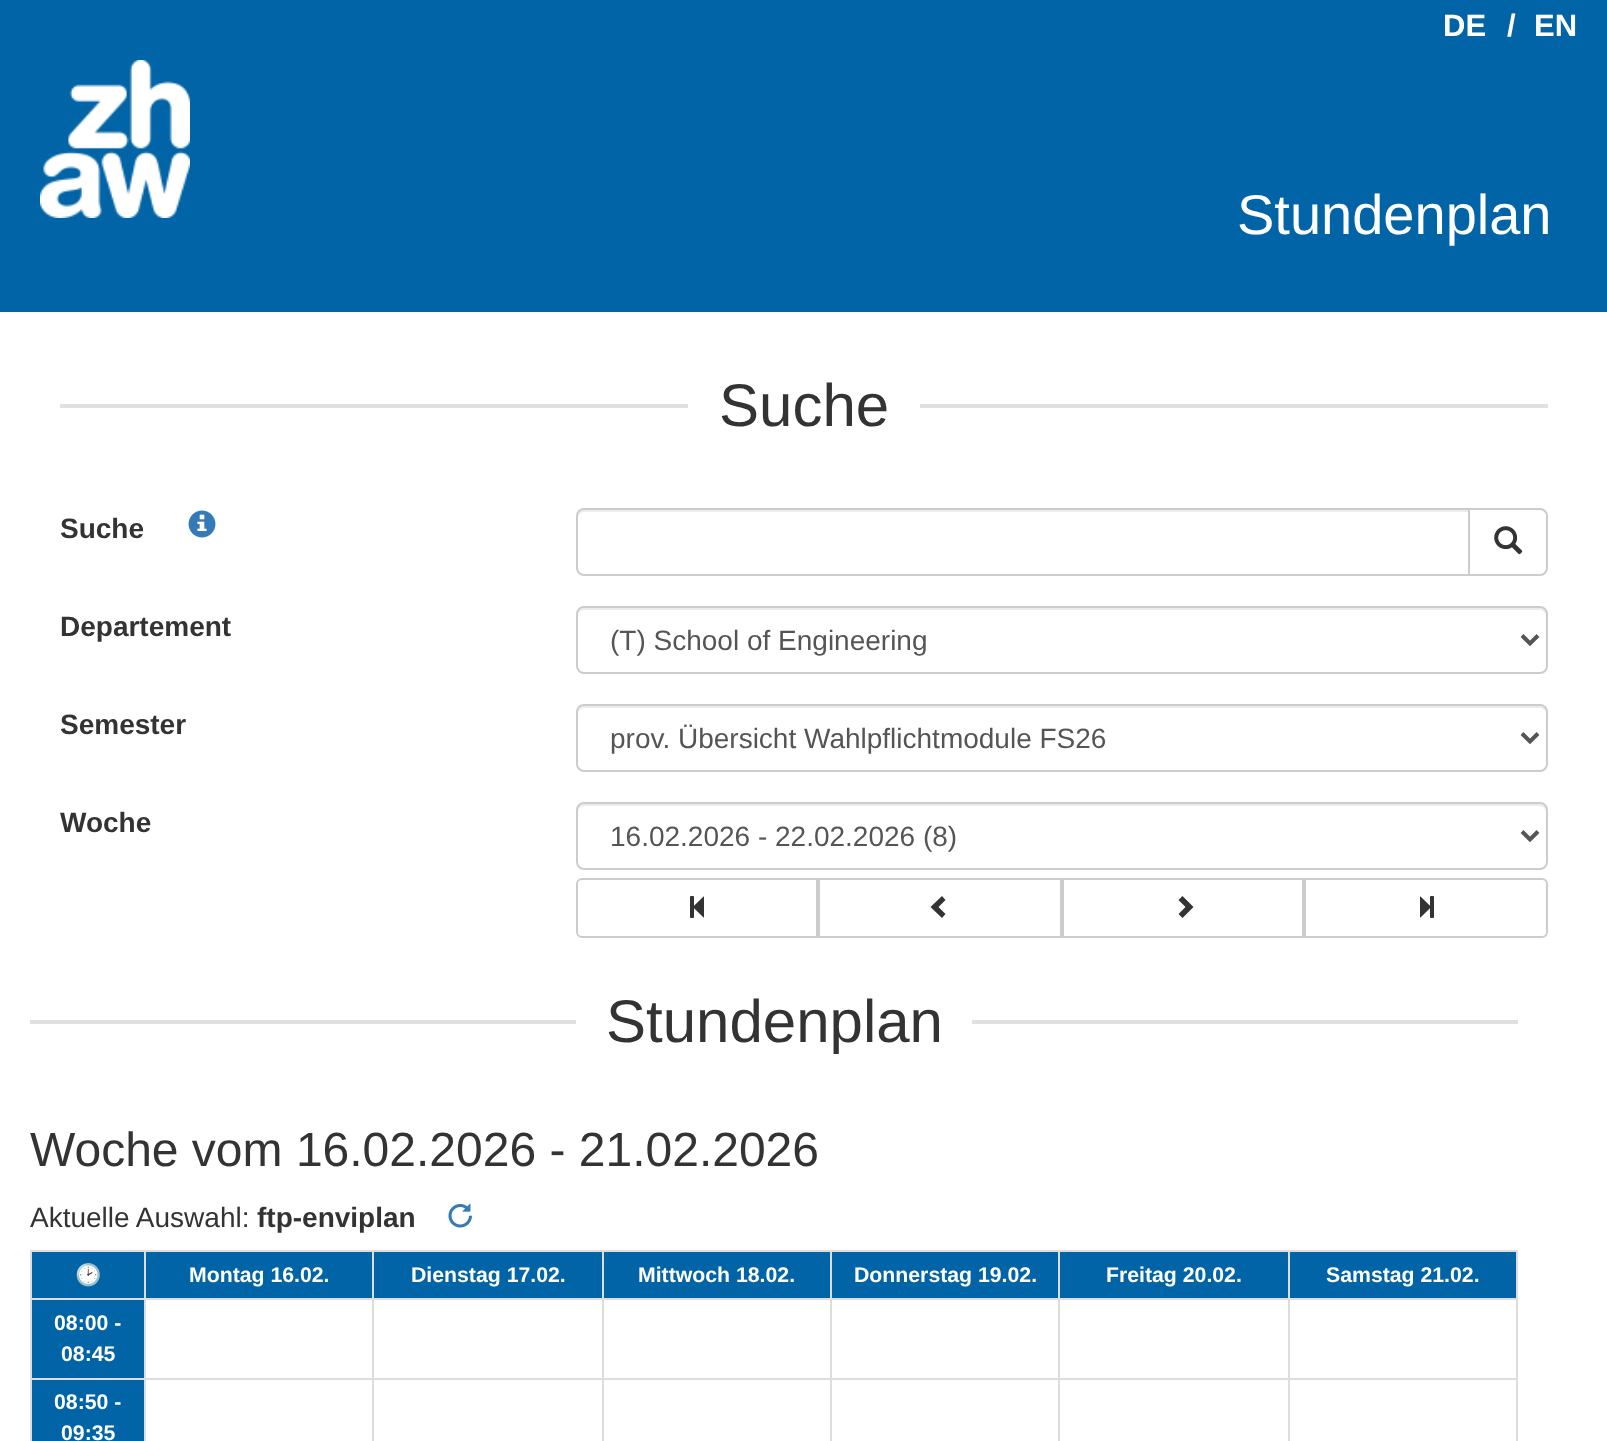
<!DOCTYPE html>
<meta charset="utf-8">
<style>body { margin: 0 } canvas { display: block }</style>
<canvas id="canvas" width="1607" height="1441"></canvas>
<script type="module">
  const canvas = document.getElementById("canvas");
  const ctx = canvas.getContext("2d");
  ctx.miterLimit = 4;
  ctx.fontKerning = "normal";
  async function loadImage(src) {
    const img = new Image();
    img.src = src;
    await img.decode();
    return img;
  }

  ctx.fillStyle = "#ffffff";
  ctx.fillRect(0, 0, 1607, 1441);
  ctx.fillStyle = "#0064a6";
  ctx.fillRect(0, 0, 1607, 312);
  ctx.font = "bold 31px Liberation Sans";
  ctx.fillStyle = "#ffffff";
  ctx.fillText("DE", 1443, 36);
  ctx.fillText("/", 1507, 36);
  ctx.fillText("EN", 1534, 36);
  ctx.drawImage(await loadImage("img1.png"), 40, 60, 150, 158);
  ctx.font = "56px Liberation Sans";
  ctx.fillText("Stundenplan", 1237, 234);
  ctx.fillStyle = "#e0e0e0";
  ctx.fillRect(60, 404, 628, 4);
  ctx.font = "60px Liberation Sans";
  ctx.fillStyle = "#333333";
  ctx.fillText("Suche", 719, 426);
  ctx.fillStyle = "#e0e0e0";
  ctx.fillRect(920, 404, 628, 4);
  ctx.font = "bold 28px Liberation Sans";
  ctx.fillStyle = "#333333";
  ctx.fillText("Suche", 60, 538);
  ctx.drawImage(await loadImage("img2.png"), 188, 510, 28, 28);
  ctx.fillStyle = "#ececec";
  ctx.beginPath();
  ctx.moveTo(584, 512);
  ctx.lineTo(1468, 512);
  ctx.lineTo(1468, 510);
  ctx.lineTo(584, 510);
  ctx.bezierCurveTo(579, 510, 578, 514, 578, 518);
  ctx.bezierCurveTo(578, 515, 581, 512, 584, 512);
  ctx.closePath();
  ctx.fill();
  ctx.beginPath();
  ctx.roundRect(577, 509, 892, 66, [7, 0, 0, 7]);
  ctx.strokeStyle = "#cccccc";
  ctx.lineWidth = 2;
  ctx.stroke();
  ctx.fillStyle = "#ffffff";
  ctx.beginPath();
  ctx.roundRect(1469, 509, 78, 66, [0, 7, 7, 0]);
  ctx.fill();
  ctx.stroke();
  ctx.drawImage(await loadImage("img3.png"), 1494, 526, 29, 29);
  ctx.fillStyle = "#333333";
  ctx.fillText("Departement", 60, 636);
  ctx.fillStyle = "#ececec";
  ctx.beginPath();
  ctx.moveTo(584, 610);
  ctx.lineTo(1540, 610);
  ctx.bezierCurveTo(1543, 610, 1546, 613, 1546, 616);
  ctx.lineTo(1546, 614);
  ctx.bezierCurveTo(1546, 611, 1543, 608, 1540, 608);
  ctx.lineTo(584, 608);
  ctx.bezierCurveTo(581, 608, 578, 611, 578, 614);
  ctx.lineTo(578, 616);
  ctx.bezierCurveTo(578, 613, 581, 610, 584, 610);
  ctx.closePath();
  ctx.fill();
  ctx.beginPath();
  ctx.roundRect(577, 607, 970, 66, 7);
  ctx.stroke();
  ctx.beginPath();
  ctx.moveTo(1522, 635.5);
  ctx.lineTo(1530, 643.5);
  ctx.lineTo(1538, 635.5);
  ctx.strokeStyle = "#555555";
  ctx.lineWidth = 4;
  ctx.stroke();
  ctx.font = "28px Liberation Sans";
  ctx.fillStyle = "#555555";
  ctx.fillText("(T) School of Engineering", 610, 650);
  ctx.font = "bold 28px Liberation Sans";
  ctx.fillStyle = "#333333";
  ctx.fillText("Semester", 60, 734);
  ctx.fillStyle = "#ececec";
  ctx.beginPath();
  ctx.moveTo(584, 708);
  ctx.lineTo(1540, 708);
  ctx.bezierCurveTo(1543, 708, 1546, 711, 1546, 714);
  ctx.lineTo(1546, 712);
  ctx.bezierCurveTo(1546, 709, 1543, 706, 1540, 706);
  ctx.lineTo(584, 706);
  ctx.bezierCurveTo(581, 706, 578, 709, 578, 712);
  ctx.lineTo(578, 714);
  ctx.bezierCurveTo(578, 711, 581, 708, 584, 708);
  ctx.closePath();
  ctx.fill();
  ctx.beginPath();
  ctx.roundRect(577, 705, 970, 66, 7);
  ctx.strokeStyle = "#cccccc";
  ctx.lineWidth = 2;
  ctx.stroke();
  ctx.beginPath();
  ctx.moveTo(1522, 733.5);
  ctx.lineTo(1530, 741.5);
  ctx.lineTo(1538, 733.5);
  ctx.strokeStyle = "#555555";
  ctx.lineWidth = 4;
  ctx.stroke();
  ctx.font = "28px Liberation Sans";
  ctx.fillStyle = "#555555";
  ctx.fillText("prov. Übersicht Wahlpflichtmodule FS26", 610, 748);
  ctx.font = "bold 28px Liberation Sans";
  ctx.fillStyle = "#333333";
  ctx.fillText("Woche", 60, 832);
  ctx.fillStyle = "#ececec";
  ctx.beginPath();
  ctx.moveTo(584, 806);
  ctx.lineTo(1540, 806);
  ctx.bezierCurveTo(1543, 806, 1546, 809, 1546, 812);
  ctx.lineTo(1546, 810);
  ctx.bezierCurveTo(1546, 807, 1543, 804, 1540, 804);
  ctx.lineTo(584, 804);
  ctx.bezierCurveTo(581, 804, 578, 807, 578, 810);
  ctx.lineTo(578, 812);
  ctx.bezierCurveTo(578, 809, 581, 806, 584, 806);
  ctx.closePath();
  ctx.fill();
  ctx.beginPath();
  ctx.roundRect(577, 803, 970, 66, 7);
  ctx.strokeStyle = "#cccccc";
  ctx.lineWidth = 2;
  ctx.stroke();
  ctx.beginPath();
  ctx.moveTo(1522, 831.5);
  ctx.lineTo(1530, 839.5);
  ctx.lineTo(1538, 831.5);
  ctx.strokeStyle = "#555555";
  ctx.lineWidth = 4;
  ctx.stroke();
  ctx.font = "28px Liberation Sans";
  ctx.fillStyle = "#555555";
  ctx.fillText("16.02.2026 - 22.02.2026 (8)", 610, 846);
  ctx.beginPath();
  ctx.roundRect(577, 879, 240, 58, [5, 0, 0, 5]);
  ctx.strokeStyle = "#cccccc";
  ctx.lineWidth = 2;
  ctx.stroke();
  ctx.drawImage(await loadImage("img4.png"), 690, 896, 14, 22);
  ctx.strokeRect(819, 879, 242, 58);
  ctx.fillStyle = "#333333";
  ctx.beginPath();
  ctx.moveTo(945.5, 900);
  ctx.lineTo(938.5, 907);
  ctx.lineTo(945.5, 914);
  ctx.lineTo(942, 918);
  ctx.lineTo(930.5, 907);
  ctx.lineTo(942, 896);
  ctx.closePath();
  ctx.fill();
  ctx.strokeRect(1063, 879, 240, 58);
  ctx.beginPath();
  ctx.moveTo(1193.5, 907);
  ctx.lineTo(1182.5, 918);
  ctx.lineTo(1178.5, 914);
  ctx.lineTo(1185.5, 907);
  ctx.lineTo(1178.5, 900);
  ctx.lineTo(1182.5, 896);
  ctx.closePath();
  ctx.fill();
  ctx.beginPath();
  ctx.roundRect(1305, 879, 242, 58, [0, 5, 5, 0]);
  ctx.stroke();
  ctx.drawImage(await loadImage("img5.png"), 1420, 896, 14, 22);
  ctx.fillStyle = "#e0e0e0";
  ctx.fillRect(30, 1020, 546, 4);
  ctx.save();
  ctx.beginPath();
  ctx.rect(30, 988, 1488, 66);
  ctx.clip();
  ctx.font = "60px Liberation Sans";
  ctx.fillStyle = "#333333";
  ctx.fillText("Stundenplan", 606, 1042);
  ctx.restore();
  ctx.fillRect(972, 1020, 546, 4);
  ctx.font = "48px Liberation Sans";
  ctx.fillStyle = "#333333";
  ctx.fillText("Woche vom 16.02.2026 - 21.02.2026", 30, 1166);
  ctx.font = "28px Liberation Sans";
  ctx.fillText("Aktuelle Auswahl:", 30, 1227);
  ctx.font = "bold 28px Liberation Sans";
  ctx.fillText("ftp-enviplan", 257, 1227);
  ctx.drawImage(await loadImage("img6.png"), 448, 1203, 24, 25);
  ctx.fillStyle = "#0064a6";
  ctx.fillRect(32, 1252, 112, 46);
  ctx.fillStyle = "#dddddd";
  ctx.fillRect(1288, 1250, 230, 2);
  ctx.fillRect(1288, 1298, 230, 2);
  ctx.fillRect(1288, 1378, 230, 2);
  ctx.fillRect(1288, 1378, 2, 63);
  ctx.fillRect(1058, 1378, 232, 2);
  ctx.fillRect(1288, 1298, 2, 82);
  ctx.fillRect(1058, 1298, 232, 2);
  ctx.fillRect(1288, 1250, 2, 50);
  ctx.fillRect(1058, 1250, 232, 2);
  ctx.fillRect(1058, 1378, 2, 63);
  ctx.fillRect(830, 1378, 230, 2);
  ctx.fillRect(1058, 1298, 2, 82);
  ctx.fillRect(830, 1298, 230, 2);
  ctx.fillRect(1058, 1250, 2, 50);
  ctx.fillRect(830, 1250, 230, 2);
  ctx.fillRect(830, 1378, 2, 63);
  ctx.fillRect(602, 1378, 230, 2);
  ctx.fillRect(830, 1298, 2, 82);
  ctx.fillRect(602, 1298, 230, 2);
  ctx.fillRect(830, 1250, 2, 50);
  ctx.fillRect(602, 1250, 230, 2);
  ctx.fillRect(602, 1378, 2, 63);
  ctx.fillRect(372, 1378, 232, 2);
  ctx.fillRect(602, 1298, 2, 82);
  ctx.fillRect(372, 1298, 232, 2);
  ctx.fillRect(602, 1250, 2, 50);
  ctx.fillRect(372, 1250, 232, 2);
  ctx.fillRect(372, 1378, 2, 63);
  ctx.fillRect(144, 1378, 230, 2);
  ctx.fillRect(372, 1298, 2, 82);
  ctx.fillRect(144, 1298, 230, 2);
  ctx.fillRect(372, 1250, 2, 50);
  ctx.fillRect(144, 1250, 230, 2);
  ctx.fillRect(144, 1378, 2, 63);
  ctx.fillRect(30, 1378, 116, 2);
  ctx.fillRect(144, 1298, 2, 82);
  ctx.fillRect(30, 1298, 116, 2);
  ctx.fillRect(144, 1250, 2, 50);
  ctx.fillRect(30, 1250, 116, 2);
  ctx.fillRect(30, 1378, 2, 63);
  ctx.fillRect(30, 1298, 2, 82);
  ctx.fillRect(30, 1250, 2, 50);
  ctx.font = "bold 21.25px Noto Color Emoji";
  ctx.fillStyle = "#ffffff";
  ctx.fillText("🕑", 75, 1282);
  ctx.fillStyle = "#0064a6";
  ctx.fillRect(146, 1252, 226, 46);
  ctx.font = "bold 21.25px Liberation Sans";
  ctx.fillStyle = "#ffffff";
  ctx.fillText("Montag 16.02.", 189, 1282);
  ctx.fillStyle = "#0064a6";
  ctx.fillRect(374, 1252, 228, 46);
  ctx.fillStyle = "#ffffff";
  ctx.fillText("Dienstag 17.02.", 411, 1282);
  ctx.fillStyle = "#0064a6";
  ctx.fillRect(604, 1252, 226, 46);
  ctx.fillStyle = "#ffffff";
  ctx.fillText("Mittwoch 18.02.", 638, 1282);
  ctx.fillStyle = "#0064a6";
  ctx.fillRect(832, 1252, 226, 46);
  ctx.fillStyle = "#ffffff";
  ctx.fillText("Donnerstag 19.02.", 854, 1282);
  ctx.fillStyle = "#0064a6";
  ctx.fillRect(1060, 1252, 228, 46);
  ctx.fillStyle = "#ffffff";
  ctx.fillText("Freitag 20.02.", 1106, 1282);
  ctx.fillStyle = "#0064a6";
  ctx.fillRect(1290, 1252, 226, 46);
  ctx.fillStyle = "#dddddd";
  ctx.fillRect(1516, 1378, 2, 63);
  ctx.fillRect(1516, 1298, 2, 82);
  ctx.fillRect(1516, 1250, 2, 50);
  ctx.fillStyle = "#ffffff";
  ctx.fillText("Samstag 21.02.", 1326, 1282);
  ctx.fillStyle = "#0064a6";
  ctx.fillRect(32, 1300, 112, 78);
  ctx.fillStyle = "#ffffff";
  ctx.fillText("08:00 -", 54, 1330);
  ctx.fillText("08:45", 61, 1361);
  ctx.fillStyle = "#0064a6";
  ctx.fillRect(32, 1380, 112, 61);
  ctx.fillStyle = "#ffffff";
  ctx.fillText("08:50 -", 54, 1409);
  ctx.fillText("09:35", 61, 1440);
</script>
